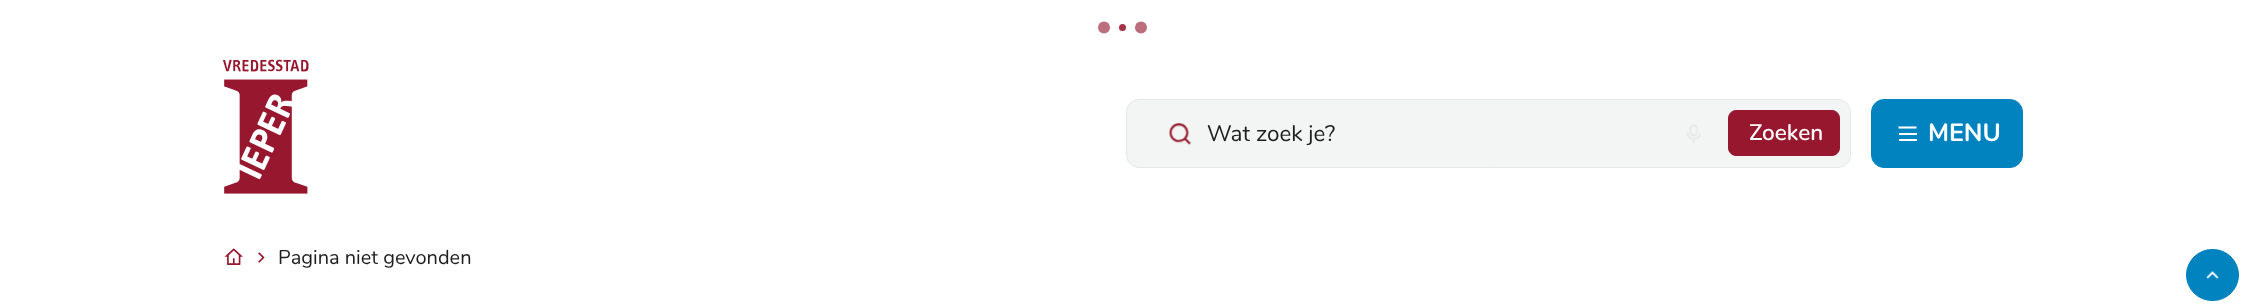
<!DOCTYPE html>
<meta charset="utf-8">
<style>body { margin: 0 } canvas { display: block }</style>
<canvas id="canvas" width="2244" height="307"></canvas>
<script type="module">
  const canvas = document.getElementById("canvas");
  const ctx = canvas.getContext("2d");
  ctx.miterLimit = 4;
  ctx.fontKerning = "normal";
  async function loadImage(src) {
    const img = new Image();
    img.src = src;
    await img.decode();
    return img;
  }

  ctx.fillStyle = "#ffffff";
  ctx.fillRect(0, 0, 2244, 307);
  ctx.fillStyle = "#bd6e7c";
  ctx.beginPath();
  ctx.arc(1104, 27.5, 6, 0, Math.PI * 2);
  ctx.fill();
  ctx.fillStyle = "#a33448";
  ctx.beginPath();
  ctx.arc(1122.5, 27.5, 3.5, 0, Math.PI * 2);
  ctx.fill();
  ctx.fillStyle = "#bd6e7c";
  ctx.beginPath();
  ctx.arc(1141, 27.5, 6, 0, Math.PI * 2);
  ctx.fill();
  ctx.drawImage(await loadImage("img1.png"), 223, 59, 86, 135);
  ctx.fillStyle = "#f2f5f4";
  ctx.beginPath();
  ctx.roundRect(1126.5, 99.5, 724, 68, 12.5);
  ctx.fill();
  ctx.strokeStyle = "#e7e7e8";
  ctx.stroke();
  ctx.drawImage(await loadImage("img2.png"), 1169, 123, 22, 22);
  ctx.font = "22.5px Nunito";
  ctx.fillStyle = "#1e1e1e";
  ctx.fillText("Wat zoek je?", 1207, 141);
  ctx.drawImage(await loadImage("img3.png"), 1686, 124, 15, 19);
  ctx.fillStyle = "#96172e";
  ctx.beginPath();
  ctx.roundRect(1728.5, 110.5, 111, 45, 7.5);
  ctx.fill();
  ctx.strokeStyle = "#96172e";
  ctx.stroke();
  ctx.font = "600 22.5px Nunito";
  ctx.fillStyle = "#ffffff";
  ctx.fillText("Zoeken", 1749, 140);
  ctx.fillStyle = "#0083be";
  ctx.beginPath();
  ctx.roundRect(1871.5, 99.5, 151, 68, 12.5);
  ctx.fill();
  ctx.strokeStyle = "#0083be";
  ctx.stroke();
  ctx.beginPath();
  ctx.moveTo(1898.5, 127.5);
  ctx.lineTo(1916.5, 127.5);
  ctx.strokeStyle = "#ffffff";
  ctx.lineWidth = 2.1;
  ctx.stroke();
  ctx.fillStyle = "#ffffff";
  ctx.fillRect(1899, 133, 18, 2);
  ctx.fillRect(1899, 139, 18, 2);
  ctx.font = "bold 25px Nunito";
  ctx.fillText("MENU", 1928, 141);
  ctx.drawImage(await loadImage("img4.png"), 224, 248, 19, 17);
  ctx.drawImage(await loadImage("img5.png"), 258, 252, 7, 11);
  ctx.font = "20px Nunito";
  ctx.fillStyle = "#1e1e1e";
  ctx.fillText("Pagina niet gevonden", 278, 264);
  ctx.fillStyle = "#0083be";
  ctx.beginPath();
  ctx.roundRect(2186.5, 249.5, 52, 51, 25.5);
  ctx.fill();
  ctx.strokeStyle = "#0083be";
  ctx.lineWidth = 1;
  ctx.stroke();
  ctx.drawImage(await loadImage("img6.png"), 2206, 270, 13, 9);
</script>
